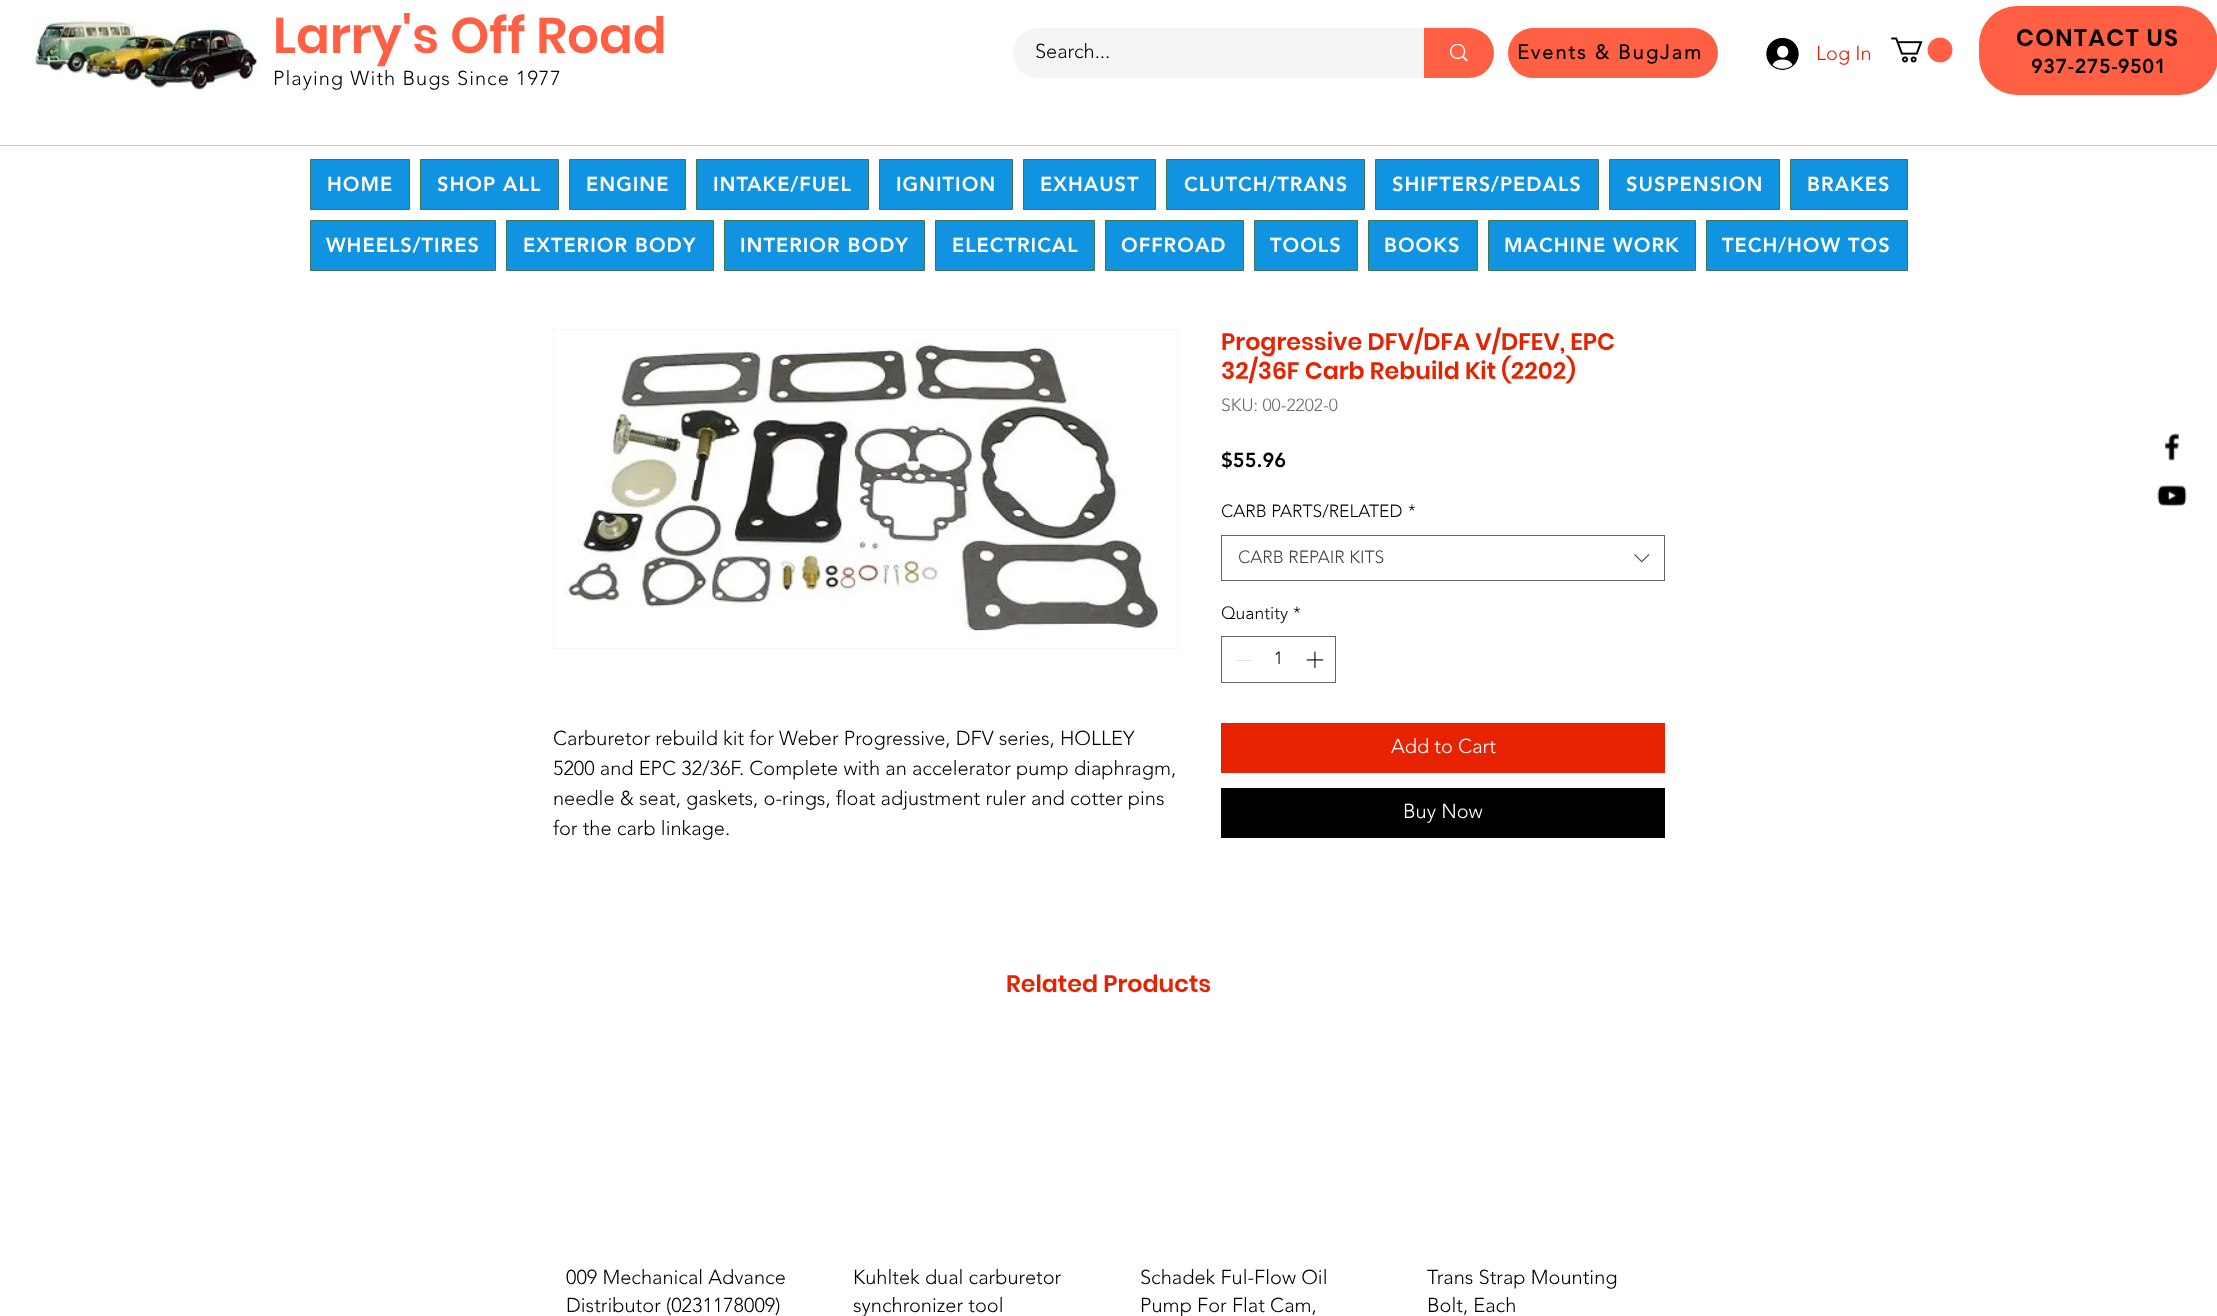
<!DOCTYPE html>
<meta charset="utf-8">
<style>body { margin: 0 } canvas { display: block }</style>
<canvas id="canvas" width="2217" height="1316"></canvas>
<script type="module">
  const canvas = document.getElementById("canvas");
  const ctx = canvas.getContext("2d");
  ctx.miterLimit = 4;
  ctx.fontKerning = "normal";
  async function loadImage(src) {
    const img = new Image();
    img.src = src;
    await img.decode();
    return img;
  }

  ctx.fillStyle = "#ffffff";
  ctx.fillRect(0, 0, 2217, 1316);
  ctx.drawImage(await loadImage("img1.png"), 30, 18, 230, 75);
  ctx.font = "600 50px Poppins";
  ctx.fillStyle = "#ff5f42";
  ctx.fillText("Larry's Off Road", 273, 53);
  ctx.letterSpacing = "1px";
  ctx.font = "300 20px 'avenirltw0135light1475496'";
  ctx.fillStyle = "#000000";
  ctx.fillText("Playing With Bugs Since 1977", 273, 85);
  ctx.fillStyle = "#f5f5f5";
  ctx.beginPath();
  ctx.roundRect(1013, 28, 481, 50, 25);
  ctx.fill();
  ctx.letterSpacing = "0px";
  ctx.fillStyle = "#000000";
  ctx.fillText("Search...", 1035, 58);
  ctx.fillStyle = "#ff5f42";
  ctx.beginPath();
  ctx.roundRect(1424, 28, 70, 50, [0, 25, 25, 0]);
  ctx.fill();
  ctx.drawImage(await loadImage("img2.png"), 1450, 44, 18, 17);
  ctx.beginPath();
  ctx.roundRect(1508, 28, 210, 50, 25);
  ctx.fill();
  ctx.letterSpacing = "2px";
  ctx.font = "bold 20px 'avenirltw0135light1475496'";
  ctx.fillStyle = "#000000";
  ctx.fillText("Events & BugJam", 1517, 59);
  ctx.drawImage(await loadImage("img3.png"), 1766, 38, 33, 32);
  ctx.letterSpacing = "0px";
  ctx.font = "300 20px 'avenirltw0135light1475496'";
  ctx.fillStyle = "#e62200";
  ctx.fillText("Log In", 1816, 60);
  ctx.drawImage(await loadImage("img4.png"), 1891, 37, 62, 26);
  ctx.fillStyle = "#ff5f42";
  ctx.beginPath();
  ctx.roundRect(1979, 6, 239, 89, 38);
  ctx.fill();
  ctx.letterSpacing = "1.25px";
  ctx.font = "600 23.75px Poppins";
  ctx.fillStyle = "#000000";
  ctx.fillText("CONTACT US", 2016, 46);
  ctx.letterSpacing = "0.4px";
  ctx.font = "900 20px 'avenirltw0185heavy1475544'";
  ctx.fillText("937-275-9501", 2031, 73);
  ctx.fillStyle = "#c7c7c7";
  ctx.fillRect(0, 145, 2217, 1);
  ctx.fillStyle = "#1093e0";
  ctx.beginPath();
  ctx.rect(310.5, 159.5, 99, 50);
  ctx.fill();
  ctx.strokeStyle = "#3f7652";
  ctx.stroke();
  ctx.letterSpacing = "1px";
  ctx.fillStyle = "#ffffff";
  ctx.fillText("HOME", 327, 191);
  ctx.fillStyle = "#1093e0";
  ctx.beginPath();
  ctx.rect(420.5, 159.5, 138, 50);
  ctx.fill();
  ctx.stroke();
  ctx.fillStyle = "#ffffff";
  ctx.fillText("SHOP ALL", 437, 191);
  ctx.fillStyle = "#1093e0";
  ctx.beginPath();
  ctx.rect(569.5, 159.5, 116, 50);
  ctx.fill();
  ctx.stroke();
  ctx.fillStyle = "#ffffff";
  ctx.fillText("ENGINE", 586, 191);
  ctx.fillStyle = "#1093e0";
  ctx.beginPath();
  ctx.rect(696.5, 159.5, 172, 50);
  ctx.fill();
  ctx.stroke();
  ctx.fillStyle = "#ffffff";
  ctx.fillText("INTAKE/FUEL", 713, 191);
  ctx.fillStyle = "#1093e0";
  ctx.beginPath();
  ctx.rect(879.5, 159.5, 133, 50);
  ctx.fill();
  ctx.stroke();
  ctx.fillStyle = "#ffffff";
  ctx.fillText("IGNITION", 896, 191);
  ctx.fillStyle = "#1093e0";
  ctx.beginPath();
  ctx.rect(1023.5, 159.5, 132, 50);
  ctx.fill();
  ctx.stroke();
  ctx.fillStyle = "#ffffff";
  ctx.fillText("EXHAUST", 1040, 191);
  ctx.fillStyle = "#1093e0";
  ctx.beginPath();
  ctx.rect(1166.5, 159.5, 198, 50);
  ctx.fill();
  ctx.stroke();
  ctx.fillStyle = "#ffffff";
  ctx.fillText("CLUTCH/TRANS", 1184, 191);
  ctx.fillStyle = "#1093e0";
  ctx.beginPath();
  ctx.rect(1375.5, 159.5, 223, 50);
  ctx.fill();
  ctx.stroke();
  ctx.fillStyle = "#ffffff";
  ctx.fillText("SHIFTERS/PEDALS", 1392, 191);
  ctx.fillStyle = "#1093e0";
  ctx.beginPath();
  ctx.rect(1609.5, 159.5, 170, 50);
  ctx.fill();
  ctx.stroke();
  ctx.fillStyle = "#ffffff";
  ctx.fillText("SUSPENSION", 1626, 191);
  ctx.fillStyle = "#1093e0";
  ctx.beginPath();
  ctx.rect(1790.5, 159.5, 117, 50);
  ctx.fill();
  ctx.stroke();
  ctx.fillStyle = "#ffffff";
  ctx.fillText("BRAKES", 1807, 191);
  ctx.fillStyle = "#1093e0";
  ctx.beginPath();
  ctx.rect(310.5, 220.5, 185, 50);
  ctx.fill();
  ctx.stroke();
  ctx.fillStyle = "#ffffff";
  ctx.fillText("WHEELS/TIRES", 326, 252);
  ctx.fillStyle = "#1093e0";
  ctx.beginPath();
  ctx.rect(506.5, 220.5, 207, 50);
  ctx.fill();
  ctx.stroke();
  ctx.fillStyle = "#ffffff";
  ctx.fillText("EXTERIOR BODY", 523, 252);
  ctx.fillStyle = "#1093e0";
  ctx.beginPath();
  ctx.rect(724.5, 220.5, 200, 50);
  ctx.fill();
  ctx.stroke();
  ctx.fillStyle = "#ffffff";
  ctx.fillText("INTERIOR BODY", 740, 252);
  ctx.fillStyle = "#1093e0";
  ctx.beginPath();
  ctx.rect(935.5, 220.5, 159, 50);
  ctx.fill();
  ctx.stroke();
  ctx.fillStyle = "#ffffff";
  ctx.fillText("ELECTRICAL", 952, 252);
  ctx.fillStyle = "#1093e0";
  ctx.beginPath();
  ctx.rect(1105.5, 220.5, 138, 50);
  ctx.fill();
  ctx.stroke();
  ctx.fillStyle = "#ffffff";
  ctx.fillText("OFFROAD", 1121, 252);
  ctx.fillStyle = "#1093e0";
  ctx.beginPath();
  ctx.rect(1254.5, 220.5, 103, 50);
  ctx.fill();
  ctx.stroke();
  ctx.fillStyle = "#ffffff";
  ctx.fillText("TOOLS", 1270, 252);
  ctx.fillStyle = "#1093e0";
  ctx.beginPath();
  ctx.rect(1368.5, 220.5, 109, 50);
  ctx.fill();
  ctx.stroke();
  ctx.fillStyle = "#ffffff";
  ctx.fillText("BOOKS", 1384, 252);
  ctx.fillStyle = "#1093e0";
  ctx.beginPath();
  ctx.rect(1488.5, 220.5, 207, 50);
  ctx.fill();
  ctx.stroke();
  ctx.fillStyle = "#ffffff";
  ctx.fillText("MACHINE WORK", 1504, 252);
  ctx.fillStyle = "#1093e0";
  ctx.beginPath();
  ctx.rect(1706.5, 220.5, 201, 50);
  ctx.fill();
  ctx.stroke();
  ctx.fillStyle = "#ffffff";
  ctx.fillText("TECH/HOW TOS", 1722, 252);
  ctx.strokeStyle = "#f5f5f5";
  ctx.strokeRect(553.5, 329.5, 624, 319);
  ctx.drawImage(await loadImage("img5.png"), 565, 340, 595, 295);
  ctx.letterSpacing = "0px";
  ctx.font = "300 20px 'avenirltw0135light1475496'";
  ctx.fillStyle = "#000000";
  ctx.fillText("Carburetor rebuild kit for Weber Progressive, DFV series, HOLLEY", 553, 745);
  ctx.fillText("5200 and EPC 32/36F. Complete with an accelerator pump diaphragm,", 553, 775);
  ctx.fillText("needle & seat, gaskets, o-rings, float adjustment ruler and cotter pins", 553, 805);
  ctx.fillText("for the carb linkage.", 553, 835);
  ctx.font = "600 23.75px Poppins";
  ctx.fillStyle = "#e62200";
  ctx.fillText("Progressive DFV/DFA V/DFEV, EPC", 1221, 350);
  ctx.fillText("32/36F Carb Rebuild Kit (2202)", 1221, 379);
  ctx.font = "300 17.5px 'avenirltw0135light1475496'";
  ctx.fillStyle = "#6b6b6a";
  ctx.fillText("SKU: 00-2202-0", 1221, 411);
  ctx.font = "900 20px 'avenirltw0185heavy1475544'";
  ctx.fillStyle = "#000000";
  ctx.fillText("$55.96", 1221, 467);
  ctx.font = "300 17.5px 'avenirltw0135light1475496'";
  ctx.fillText("CARB PARTS/RELATED", 1221, 517);
  ctx.fillText("*", 1408, 517);
  ctx.strokeStyle = "#666666";
  ctx.strokeRect(1221.5, 535.5, 443, 45);
  ctx.fillStyle = "#444444";
  ctx.fillText("CARB REPAIR KITS", 1238, 563);
  ctx.drawImage(await loadImage("img6.png"), 1634, 554, 16, 9);
  ctx.fillStyle = "#000000";
  ctx.fillText("Quantity", 1221, 619);
  ctx.fillText("*", 1293, 619);
  ctx.strokeRect(1221.5, 636.5, 114, 46);
  ctx.fillStyle = "#e3e3e3";
  ctx.fillRect(1236, 660, 16, 1);
  ctx.fillStyle = "#000000";
  ctx.fillText("1", 1274, 664);
  ctx.drawImage(await loadImage("img7.png"), 1306, 651, 18, 18);
  ctx.fillStyle = "#e62200";
  ctx.fillRect(1221, 723, 444, 50);
  ctx.font = "300 20px 'avenirltw0135light1475496'";
  ctx.fillStyle = "#ffffff";
  ctx.fillText("Add to Cart", 1391, 753);
  ctx.fillStyle = "#000000";
  ctx.fillRect(1221, 788, 444, 50);
  ctx.fillStyle = "#ffffff";
  ctx.fillText("Buy Now", 1403, 818);
  ctx.font = "600 23.75px Poppins";
  ctx.fillStyle = "#e62200";
  ctx.fillText("Related Products", 1006, 992);
  ctx.font = "300 20px 'avenirltw0135light1475496'";
  ctx.fillStyle = "#000000";
  ctx.fillText("009 Mechanical Advance", 566, 1284);
  ctx.fillText("Distributor (0231178009)", 566, 1312);
  ctx.fillText("Kuhltek dual carburetor", 853, 1284);
  ctx.fillText("synchronizer tool", 853, 1312);
  ctx.fillText("Schadek Ful-Flow Oil", 1140, 1284);
  ctx.fillText("Pump For Flat Cam,", 1140, 1312);
  ctx.fillText("Trans Strap Mounting", 1427, 1284);
  ctx.fillText("Bolt, Each", 1427, 1312);
  ctx.drawImage(await loadImage("img8.png"), 2164, 433, 15, 28);
  ctx.drawImage(await loadImage("img9.png"), 2157, 485, 30, 22);
</script>
